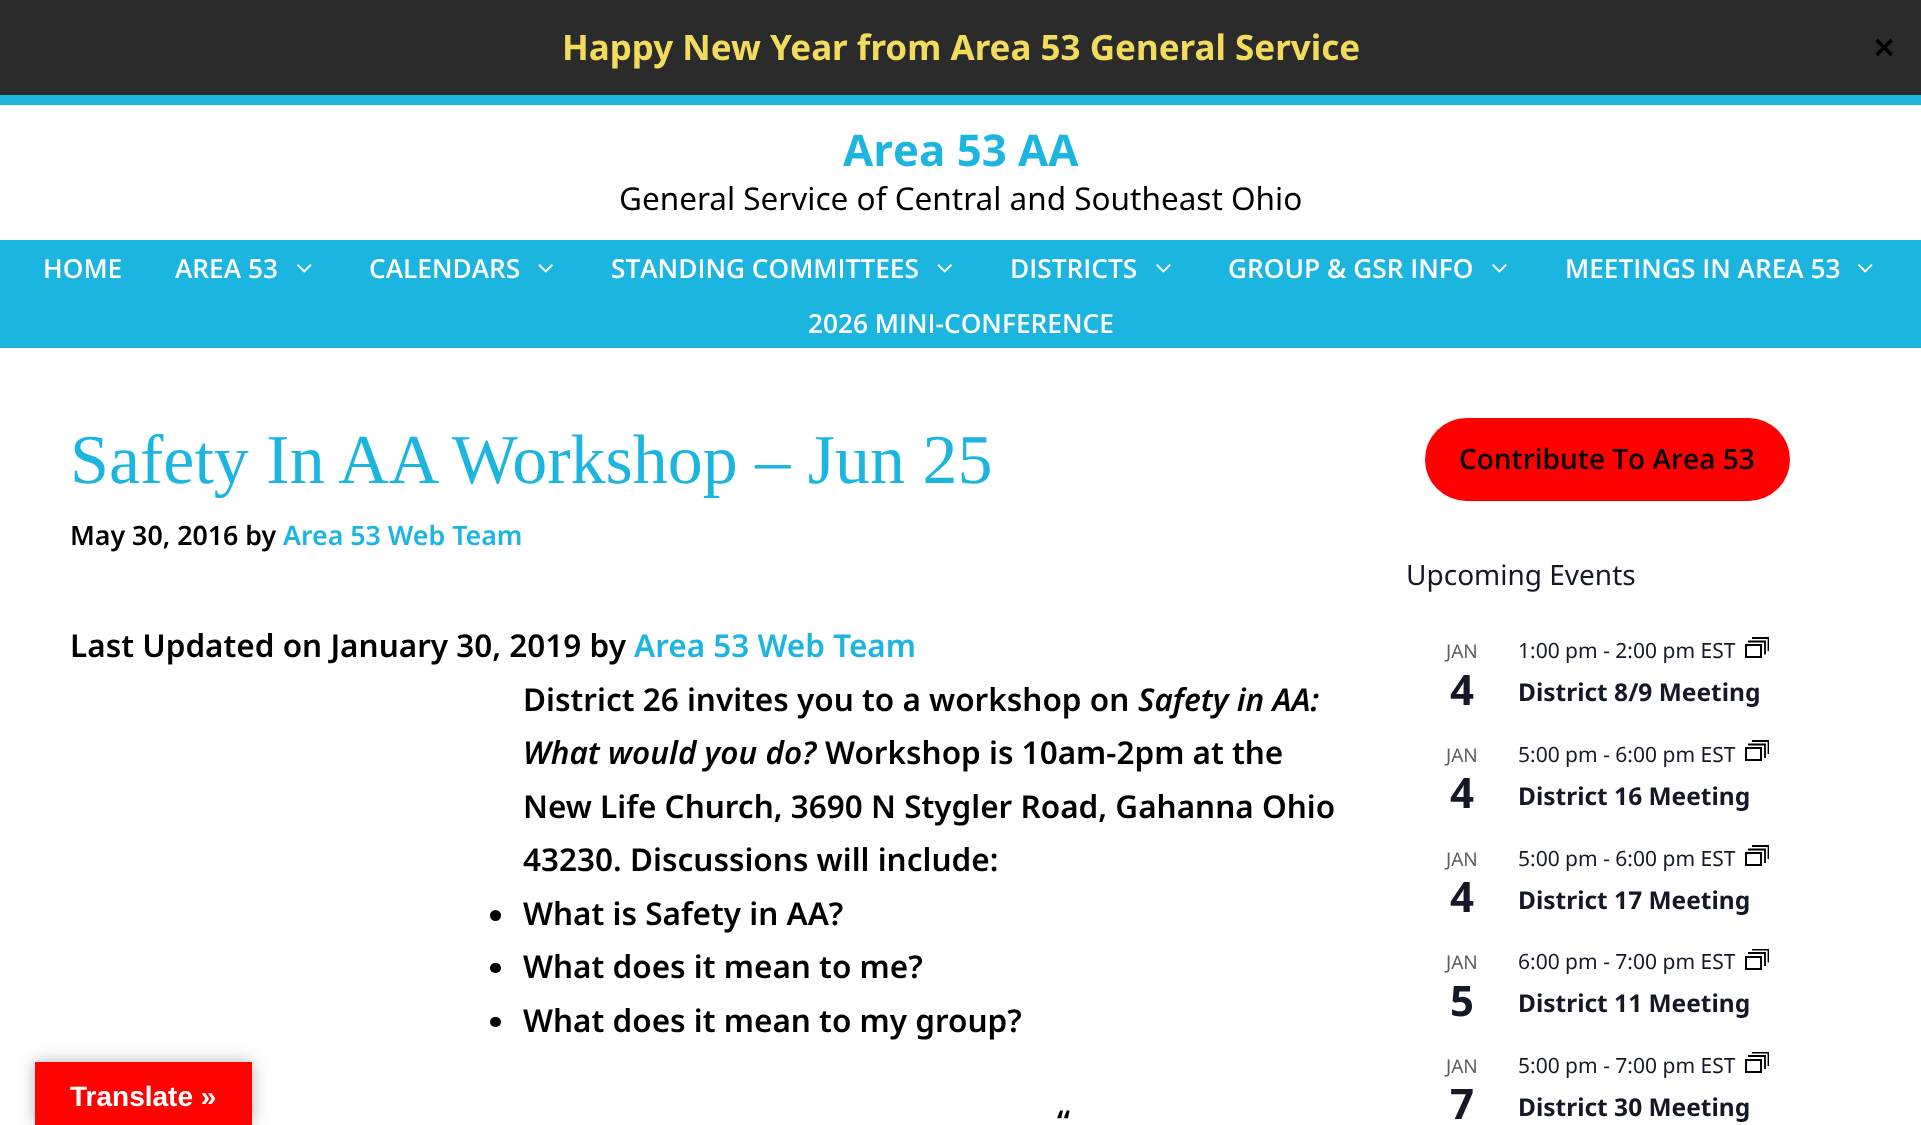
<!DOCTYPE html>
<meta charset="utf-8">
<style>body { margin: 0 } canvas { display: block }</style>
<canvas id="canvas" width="1921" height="1125"></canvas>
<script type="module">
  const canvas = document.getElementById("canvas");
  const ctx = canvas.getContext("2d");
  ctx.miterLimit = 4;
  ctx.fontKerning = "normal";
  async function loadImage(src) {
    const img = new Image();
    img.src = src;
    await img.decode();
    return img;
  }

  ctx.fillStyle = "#ffffff";
  ctx.fillRect(0, 0, 1921, 1125);
  ctx.fillStyle = "#2a2b2a";
  ctx.fillRect(0, 0, 1921, 95);
  ctx.font = "bold 35px Noto Sans";
  ctx.fillStyle = "#f2dc5d";
  ctx.fillText("Happy New Year from Area 53 General Service", 562, 60);
  ctx.font = "bold 28px DejaVu Sans";
  ctx.fillStyle = "#000000";
  ctx.fillText("✕", 1872, 58);
  ctx.fillStyle = "#1cb5e0";
  ctx.fillRect(0, 95, 1921, 10);
  ctx.font = "bold 43.75px Open Sans";
  ctx.fillText("Area 53 AA", 843, 166);
  ctx.font = "31.5px Noto Sans";
  ctx.fillStyle = "#000000";
  ctx.fillText("General Service of Central and Southeast Ohio", 619, 210);
  ctx.fillStyle = "#1cb5e0";
  ctx.fillRect(0, 240, 1921, 108);
  ctx.font = "600 26.25px Open Sans";
  ctx.fillStyle = "#ffffff";
  ctx.fillText("HOME", 43, 278);
  ctx.fillText("AREA 53", 175, 278);
  ctx.drawImage(await loadImage("img1.png"), 297, 264, 15, 9);
  ctx.fillText("CALENDARS", 369, 278);
  ctx.drawImage(await loadImage("img2.png"), 538, 264, 15, 9);
  ctx.fillText("STANDING COMMITTEES", 611, 278);
  ctx.drawImage(await loadImage("img2.png"), 937, 264, 15, 9);
  ctx.fillText("DISTRICTS", 1010, 278);
  ctx.drawImage(await loadImage("img3.png"), 1156, 264, 15, 9);
  ctx.fillText("GROUP & GSR INFO", 1228, 278);
  ctx.drawImage(await loadImage("img3.png"), 1492, 264, 15, 9);
  ctx.fillText("MEETINGS IN AREA 53", 1565, 278);
  ctx.drawImage(await loadImage("img1.png"), 1858, 264, 15, 9);
  ctx.fillText("2026 MINI-CONFERENCE", 808, 333);
  ctx.font = "70px Liberation Serif";
  ctx.fillStyle = "#1cb5e0";
  ctx.fillText("Safety In AA Workshop – Jun 25", 70, 483);
  ctx.font = "600 26.75px Noto Sans";
  ctx.fillStyle = "#000000";
  ctx.fillText("May 30, 2016 by", 70, 545);
  ctx.fillStyle = "#1cb5e0";
  ctx.fillText("Area 53 Web Team", 283, 545);
  ctx.font = "600 31.5px Noto Sans";
  ctx.fillStyle = "#000000";
  ctx.fillText("Last Updated on January 30, 2019 by", 70, 657);
  ctx.fillStyle = "#1cb5e0";
  ctx.fillText("Area 53 Web Team", 634, 657);
  ctx.fillStyle = "#000000";
  ctx.fillText("District 26 invites you to a workshop on", 523, 711);
  ctx.font = "italic 600 31.5px Noto Sans";
  ctx.fillText("Safety in AA:", 1138, 711);
  ctx.fillText("What would you do?", 523, 764);
  ctx.font = "600 31.5px Noto Sans";
  ctx.fillText("Workshop is 10am-2pm at the", 825, 764);
  ctx.fillText("New Life Church, 3690 N Stygler Road, Gahanna Ohio", 523, 818);
  ctx.fillText("43230. Discussions will include:", 523, 871);
  ctx.beginPath();
  ctx.arc(495.5, 915.5, 5.5, 0, Math.PI * 2);
  ctx.fill();
  ctx.fillText("What is Safety in AA?", 523, 925);
  ctx.beginPath();
  ctx.roundRect(490, 963, 11, 10, 5);
  ctx.fill();
  ctx.fillText("What does it mean to me?", 523, 978);
  ctx.beginPath();
  ctx.roundRect(490, 1017, 11, 10, 5);
  ctx.fill();
  ctx.fillText("What does it mean to my group?", 523, 1032);
  ctx.fillText("“", 1057, 1133);
  ctx.fillStyle = "#ff0000";
  ctx.beginPath();
  ctx.roundRect(1425, 418, 365, 83, 41.5);
  ctx.fill();
  ctx.font = "600 28px Open Sans";
  ctx.fillStyle = "#000000";
  ctx.fillText("Contribute To Area 53", 1459, 469);
  ctx.font = "28px Noto Sans";
  ctx.fillStyle = "#141827";
  ctx.fillText("Upcoming Events", 1406, 585);
  ctx.font = "19px Noto Sans";
  ctx.fillStyle = "#5d5d5d";
  ctx.fillText("JAN", 1446, 658);
  ctx.font = "bold 42px Noto Sans";
  ctx.fillStyle = "#141827";
  ctx.fillText("4", 1450, 705);
  ctx.font = "21px Noto Sans";
  ctx.fillText("1:00 pm - 2:00 pm EST", 1518, 658);
  ctx.strokeStyle = "#000000";
  ctx.lineWidth = 2;
  ctx.strokeRect(1746, 645, 15, 12);
  ctx.beginPath();
  ctx.moveTo(1748, 641.5);
  ctx.lineTo(1765, 641.5);
  ctx.lineTo(1765, 654.5);
  ctx.lineWidth = 1.8;
  ctx.stroke();
  ctx.save();
  ctx.beginPath();
  ctx.rect(1745, 637, 24, 21);
  ctx.clip();
  ctx.beginPath();
  ctx.moveTo(1752, 638);
  ctx.lineTo(1768.5, 638);
  ctx.lineTo(1768.5, 651);
  ctx.stroke();
  ctx.restore();
  ctx.font = "bold 24.5px Noto Sans";
  ctx.fillText("District 8/9 Meeting", 1518, 701);
  ctx.font = "19px Noto Sans";
  ctx.fillStyle = "#5d5d5d";
  ctx.fillText("JAN", 1446, 762);
  ctx.font = "bold 42px Noto Sans";
  ctx.fillStyle = "#141827";
  ctx.fillText("4", 1450, 808);
  ctx.font = "21px Noto Sans";
  ctx.fillText("5:00 pm - 6:00 pm EST", 1518, 762);
  ctx.lineWidth = 2;
  ctx.strokeRect(1746, 748, 15, 12);
  ctx.beginPath();
  ctx.moveTo(1748, 744.5);
  ctx.lineTo(1765, 744.5);
  ctx.lineTo(1765, 758);
  ctx.lineWidth = 1.8;
  ctx.stroke();
  ctx.save();
  ctx.beginPath();
  ctx.rect(1745, 740, 24, 21);
  ctx.clip();
  ctx.beginPath();
  ctx.moveTo(1752, 741);
  ctx.lineTo(1768.5, 741);
  ctx.lineTo(1768.5, 754);
  ctx.stroke();
  ctx.restore();
  ctx.font = "bold 24.5px Noto Sans";
  ctx.fillText("District 16 Meeting", 1518, 805);
  ctx.font = "19px Noto Sans";
  ctx.fillStyle = "#5d5d5d";
  ctx.fillText("JAN", 1446, 866);
  ctx.font = "bold 42px Noto Sans";
  ctx.fillStyle = "#141827";
  ctx.fillText("4", 1450, 912);
  ctx.font = "21px Noto Sans";
  ctx.fillText("5:00 pm - 6:00 pm EST", 1518, 866);
  ctx.lineWidth = 2;
  ctx.strokeRect(1746, 853, 15, 12);
  ctx.beginPath();
  ctx.moveTo(1748, 849.5);
  ctx.lineTo(1765, 849.5);
  ctx.lineTo(1765, 863);
  ctx.lineWidth = 1.8;
  ctx.stroke();
  ctx.save();
  ctx.beginPath();
  ctx.rect(1745, 845, 24, 21);
  ctx.clip();
  ctx.beginPath();
  ctx.moveTo(1752, 846);
  ctx.lineTo(1768.5, 846);
  ctx.lineTo(1768.5, 859);
  ctx.stroke();
  ctx.restore();
  ctx.font = "bold 24.5px Noto Sans";
  ctx.fillText("District 17 Meeting", 1518, 909);
  ctx.font = "19px Noto Sans";
  ctx.fillStyle = "#5d5d5d";
  ctx.fillText("JAN", 1446, 969);
  ctx.font = "bold 42px Noto Sans";
  ctx.fillStyle = "#141827";
  ctx.fillText("5", 1450, 1016);
  ctx.font = "21px Noto Sans";
  ctx.fillText("6:00 pm - 7:00 pm EST", 1518, 969);
  ctx.lineWidth = 2;
  ctx.strokeRect(1746, 957, 15, 12);
  ctx.beginPath();
  ctx.moveTo(1748, 953);
  ctx.lineTo(1765, 953);
  ctx.lineTo(1765, 966);
  ctx.lineWidth = 1.8;
  ctx.stroke();
  ctx.save();
  ctx.beginPath();
  ctx.rect(1745, 949, 24, 21);
  ctx.clip();
  ctx.beginPath();
  ctx.moveTo(1752, 949.5);
  ctx.lineTo(1768.5, 949.5);
  ctx.lineTo(1768.5, 962.5);
  ctx.stroke();
  ctx.restore();
  ctx.font = "bold 24.5px Noto Sans";
  ctx.fillText("District 11 Meeting", 1518, 1012);
  ctx.font = "19px Noto Sans";
  ctx.fillStyle = "#5d5d5d";
  ctx.fillText("JAN", 1446, 1073);
  ctx.font = "bold 42px Noto Sans";
  ctx.fillStyle = "#141827";
  ctx.fillText("7", 1450, 1119);
  ctx.font = "21px Noto Sans";
  ctx.fillText("5:00 pm - 7:00 pm EST", 1518, 1073);
  ctx.lineWidth = 2;
  ctx.strokeRect(1746, 1060, 15, 12);
  ctx.beginPath();
  ctx.moveTo(1748, 1056);
  ctx.lineTo(1765, 1056);
  ctx.lineTo(1765, 1069);
  ctx.lineWidth = 1.8;
  ctx.stroke();
  ctx.save();
  ctx.beginPath();
  ctx.rect(1745, 1052, 24, 21);
  ctx.clip();
  ctx.beginPath();
  ctx.moveTo(1752, 1052.5);
  ctx.lineTo(1768.5, 1052.5);
  ctx.lineTo(1768.5, 1066);
  ctx.stroke();
  ctx.restore();
  ctx.font = "bold 24.5px Noto Sans";
  ctx.fillText("District 30 Meeting", 1518, 1116);
  ctx.fillStyle = "rgba(0, 0, 0, 0.3)";
  ctx.filter = "blur(8px)";
  ctx.beginPath();
  ctx.rect(35, 1062, 217, 63);
  ctx.fill();
  ctx.filter = "none";
  ctx.fillStyle = "#ff0202";
  ctx.fillRect(35, 1062, 217, 63);
  ctx.font = "bold 28px Liberation Sans";
  ctx.fillStyle = "#ffffff";
  ctx.fillText("Translate »", 70, 1106);
</script>
